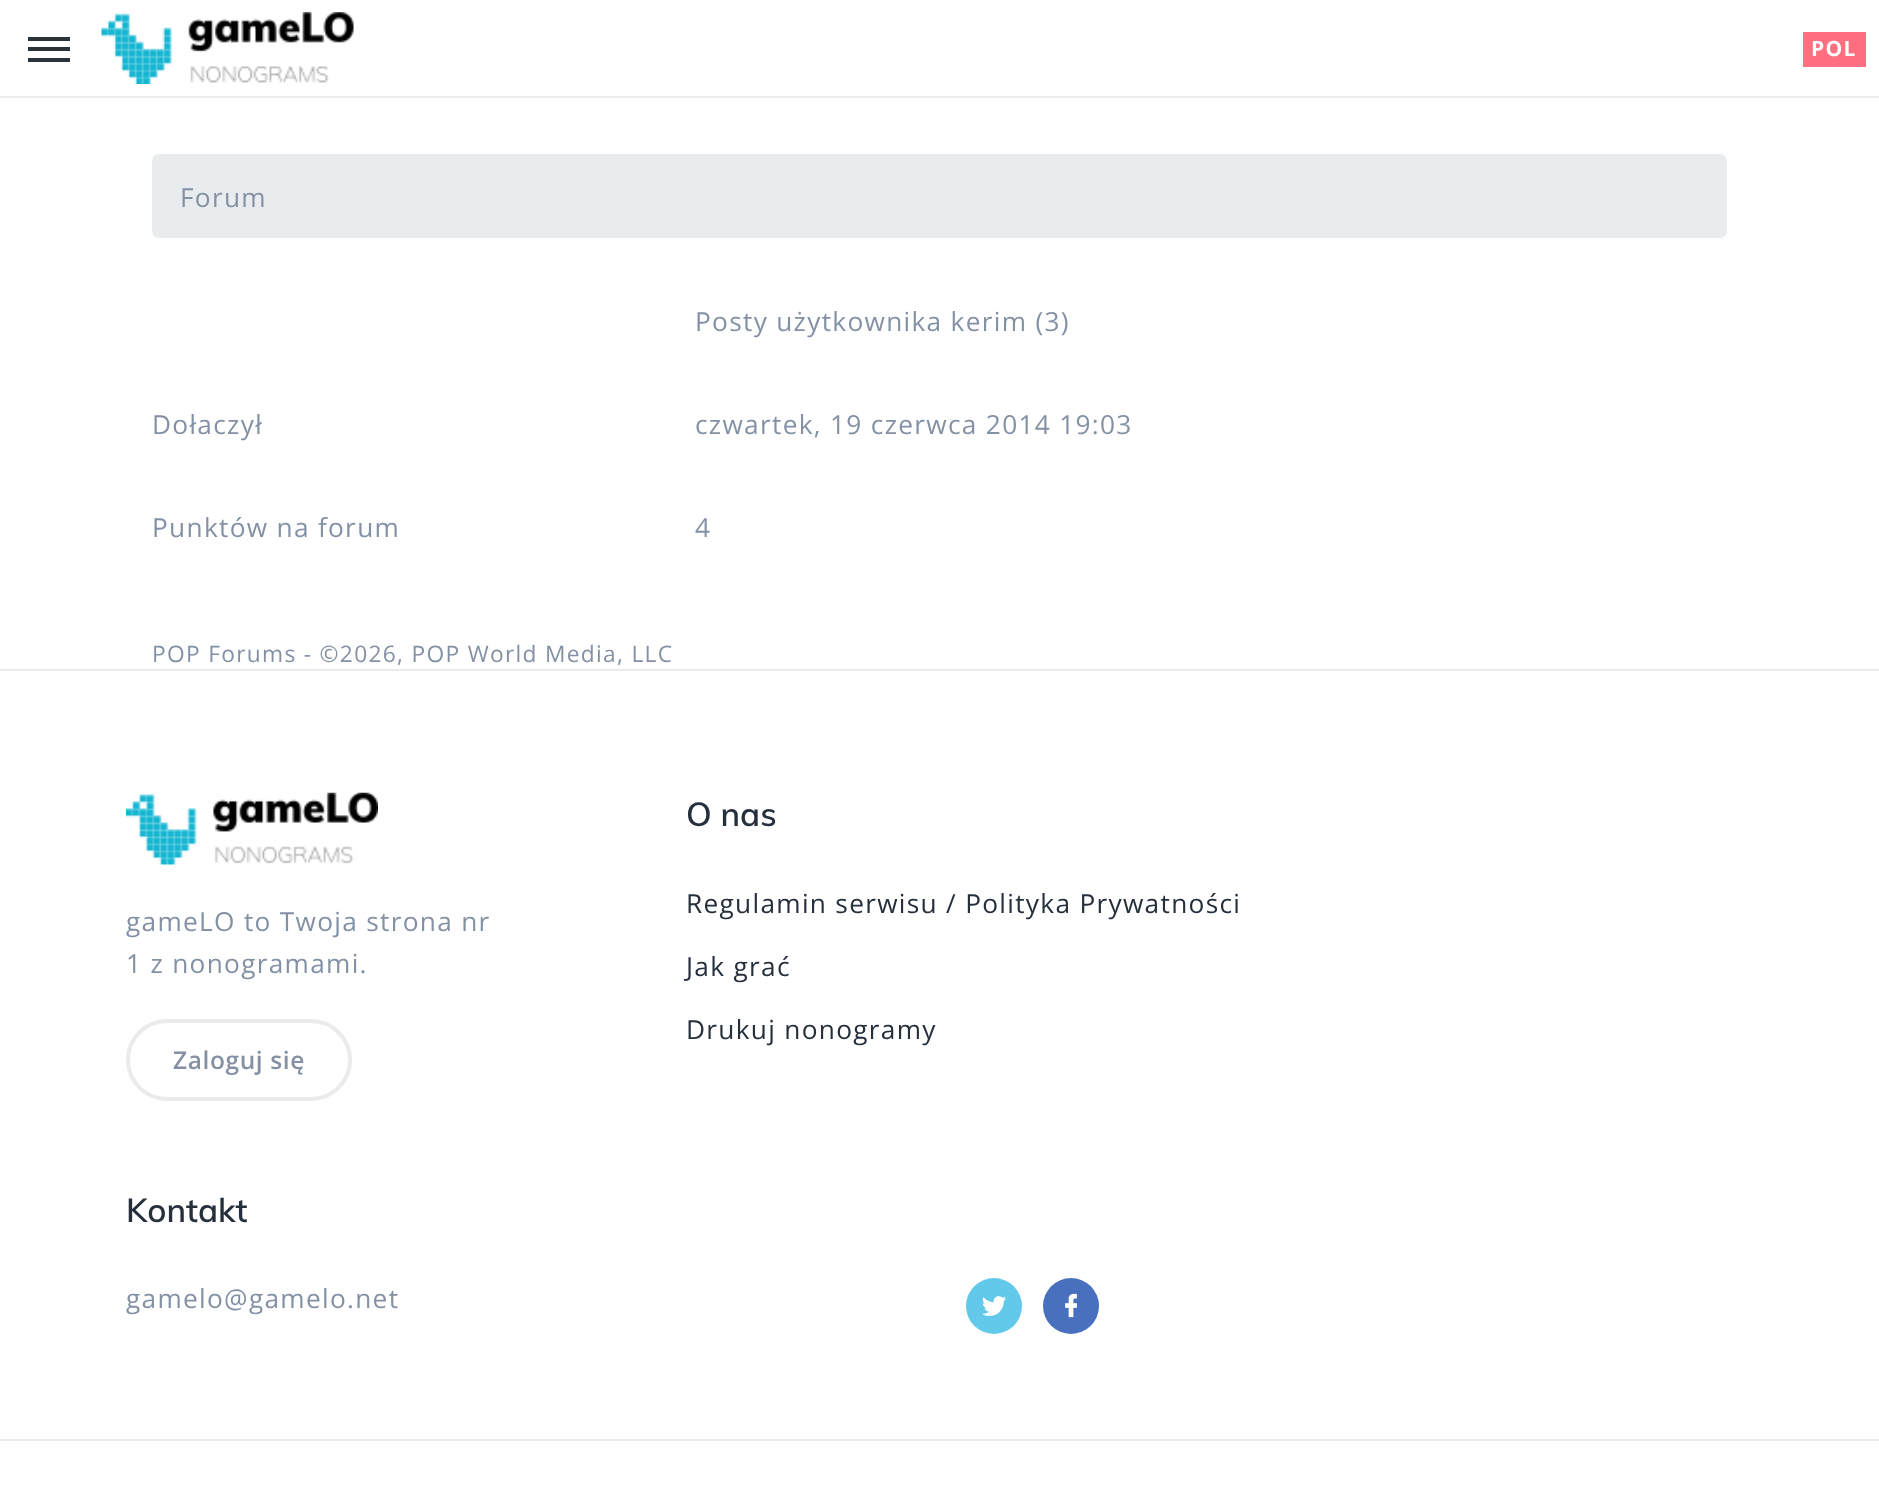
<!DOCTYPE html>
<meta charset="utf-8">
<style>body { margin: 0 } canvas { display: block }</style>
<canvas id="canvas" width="1879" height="1505"></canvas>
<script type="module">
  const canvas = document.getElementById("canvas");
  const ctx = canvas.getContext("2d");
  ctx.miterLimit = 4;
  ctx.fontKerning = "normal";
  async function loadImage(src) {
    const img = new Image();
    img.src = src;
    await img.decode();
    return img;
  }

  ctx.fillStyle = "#ffffff";
  ctx.fillRect(0, 0, 1879, 1505);
  ctx.fillStyle = "#ebebeb";
  ctx.fillRect(0, 96, 1879, 2);
  ctx.fillStyle = "#2c343b";
  ctx.fillRect(28, 47, 42, 4);
  ctx.fillRect(28, 37, 42, 4);
  ctx.fillRect(28, 58, 42, 4);
  ctx.drawImage(await loadImage("img1.png"), 101, 12, 253, 72);
  ctx.fillStyle = "#ff6f80";
  ctx.fillRect(1803, 32, 63, 35);
  ctx.letterSpacing = "1.3px";
  ctx.font = "bold 21px Open Sans";
  ctx.fillStyle = "#ffffff";
  ctx.fillText("POL", 1811, 56);
  ctx.fillStyle = "#e9ecef";
  ctx.beginPath();
  ctx.roundRect(152, 154, 1575, 84, 7);
  ctx.fill();
  ctx.font = "26.25px Open Sans";
  ctx.fillStyle = "#8491a5";
  ctx.fillText("Forum", 180, 207);
  ctx.fillText("Posty użytkownika kerim (3)", 695, 331);
  ctx.fillText("Dołaczył", 152, 434);
  ctx.fillText("czwartek, 19 czerwca 2014 19:03", 695, 434);
  ctx.fillText("Punktów na forum", 152, 537);
  ctx.fillText("4", 695, 537);
  ctx.font = "22.75px Open Sans";
  ctx.fillText("POP Forums - ©2026, POP World Media, LLC", 152, 662);
  ctx.fillStyle = "#ebebeb";
  ctx.fillRect(0, 669, 1879, 2);
  ctx.drawImage(await loadImage("img2.png"), 126, 792, 252, 73);
  ctx.font = "26.25px Open Sans";
  ctx.fillStyle = "#8491a5";
  ctx.fillText("gameLO to Twoja strona nr", 126, 931);
  ctx.fillText("1 z nonogramami.", 126, 973);
  ctx.beginPath();
  ctx.roundRect(128, 1021, 222, 78, 39);
  ctx.strokeStyle = "#ebebeb";
  ctx.lineWidth = 4;
  ctx.stroke();
  ctx.letterSpacing = "0.6px";
  ctx.font = "600 24.5px Open Sans";
  ctx.fillText("Zaloguj się", 173, 1069);
  ctx.letterSpacing = "0px";
  ctx.font = "600 33px Muli";
  ctx.fillStyle = "#262f3c";
  ctx.fillText("O nas", 686, 826);
  ctx.letterSpacing = "1.3px";
  ctx.font = "26.25px Open Sans";
  ctx.fillText("Regulamin serwisu / Polityka Prywatności", 686, 913);
  ctx.fillText("Jak grać", 686, 976);
  ctx.fillText("Drukuj nonogramy", 686, 1039);
  ctx.letterSpacing = "0px";
  ctx.font = "600 33px Muli";
  ctx.fillText("Kontakt", 126, 1222);
  ctx.letterSpacing = "1.3px";
  ctx.font = "26.25px Open Sans";
  ctx.fillStyle = "#8491a5";
  ctx.fillText("gamelo@gamelo.net", 126, 1308);
  ctx.fillStyle = "#63c9eb";
  ctx.beginPath();
  ctx.arc(994, 1306, 28, 0, Math.PI * 2);
  ctx.fill();
  ctx.drawImage(await loadImage("img3.png"), 982, 1296, 24, 20);
  ctx.fillStyle = "#4970bf";
  ctx.beginPath();
  ctx.arc(1071, 1306, 28, 0, Math.PI * 2);
  ctx.fill();
  ctx.drawImage(await loadImage("img4.png"), 1065, 1293, 12, 25);
  ctx.fillStyle = "#ebebeb";
  ctx.fillRect(0, 1439, 1879, 2);
</script>
